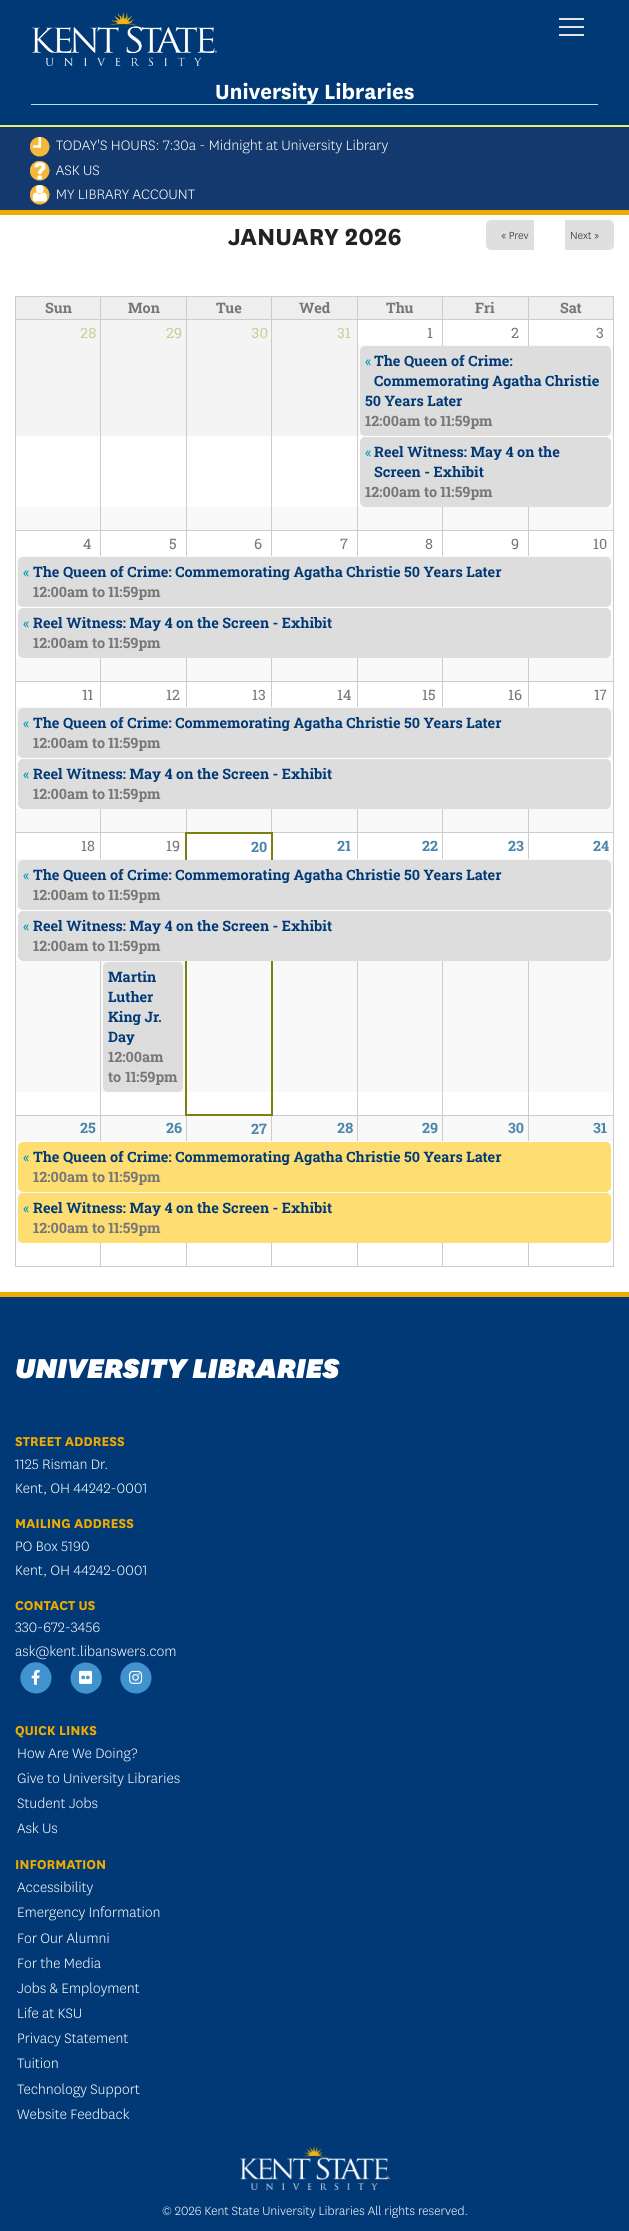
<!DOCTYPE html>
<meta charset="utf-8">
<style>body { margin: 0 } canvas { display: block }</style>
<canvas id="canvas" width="629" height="2231"></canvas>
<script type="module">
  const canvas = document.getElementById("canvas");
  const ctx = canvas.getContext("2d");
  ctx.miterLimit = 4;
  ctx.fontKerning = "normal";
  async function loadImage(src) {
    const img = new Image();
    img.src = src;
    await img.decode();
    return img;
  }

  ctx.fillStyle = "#ffffff";
  ctx.fillRect(0, 0, 629, 2231);
  ctx.fillStyle = "#003976";
  ctx.fillRect(0, 0, 629, 125);
  ctx.fillStyle = "#efab00";
  ctx.fillRect(0, 210, 629, 5);
  ctx.drawImage(await loadImage("img1.png"), 32, 12, 185, 54);
  ctx.fillStyle = "#e6e6e6";
  ctx.fillRect(559, 26, 25, 2);
  ctx.fillRect(559, 18, 25, 2);
  ctx.fillRect(559, 34, 25, 2);
  ctx.fillStyle = "#aeeae5";
  ctx.fillRect(31, 104, 567, 1);
  ctx.drawImage(await loadImage("img2.png"), 216, 82, 198, 22);
  ctx.fillStyle = "#14396e";
  ctx.fillRect(0, 127, 629, 83);
  ctx.fillStyle = "#ebee6b";
  ctx.fillRect(0, 125, 629, 2);
  ctx.drawImage(await loadImage("img3.png"), 30, 137, 20, 20);
  ctx.drawImage(await loadImage("img4.png"), 56, 139, 103, 12);
  ctx.drawImage(await loadImage("img5.png"), 163, 139, 225, 15);
  ctx.drawImage(await loadImage("img6.png"), 30, 161, 20, 20);
  ctx.drawImage(await loadImage("img7.png"), 56, 165, 43, 11);
  ctx.drawImage(await loadImage("img8.png"), 30, 185, 20, 20);
  ctx.drawImage(await loadImage("img9.png"), 57, 189, 138, 11);
  ctx.drawImage(await loadImage("img10.png"), 228, 228, 173, 18);
  ctx.fillStyle = "#dfdfdf";
  ctx.beginPath();
  ctx.roundRect(486, 220, 48, 30, [5, 0, 0, 5]);
  ctx.fill();
  ctx.drawImage(await loadImage("img11.png"), 501, 231, 28, 9);
  ctx.beginPath();
  ctx.roundRect(565, 220, 49, 30, [0, 5, 5, 0]);
  ctx.fill();
  ctx.drawImage(await loadImage("img12.png"), 571, 231, 28, 9);
  ctx.fillStyle = "#eeeeee";
  ctx.fillRect(16, 297, 84, 22);
  ctx.fillStyle = "#cccccc";
  ctx.fillRect(528, 296, 86, 1);
  ctx.fillRect(528, 319, 86, 1);
  ctx.fillStyle = "#f9f9f9";
  ctx.fillRect(358, 345, 255, 91);
  ctx.fillStyle = "#cccccc";
  ctx.fillRect(528, 319, 1, 27);
  ctx.fillRect(442, 319, 87, 1);
  ctx.fillRect(528, 296, 1, 24);
  ctx.fillRect(442, 296, 87, 1);
  ctx.fillRect(442, 319, 1, 27);
  ctx.fillRect(357, 319, 86, 1);
  ctx.fillRect(442, 296, 1, 24);
  ctx.fillRect(357, 296, 86, 1);
  ctx.fillStyle = "#f9f9f9";
  ctx.fillRect(16, 507, 597, 23);
  ctx.fillStyle = "#cccccc";
  ctx.fillRect(528, 530, 86, 1);
  ctx.fillRect(528, 530, 1, 26);
  ctx.fillRect(442, 530, 87, 1);
  ctx.fillRect(442, 530, 1, 26);
  ctx.fillRect(357, 530, 86, 1);
  ctx.fillRect(357, 530, 1, 26);
  ctx.fillRect(271, 530, 87, 1);
  ctx.fillRect(357, 345, 1, 186);
  ctx.fillRect(357, 319, 1, 27);
  ctx.fillRect(271, 319, 87, 1);
  ctx.fillRect(357, 296, 1, 24);
  ctx.fillRect(271, 296, 87, 1);
  ctx.fillRect(271, 530, 1, 26);
  ctx.fillRect(186, 530, 86, 1);
  ctx.fillRect(271, 345, 1, 186);
  ctx.fillRect(271, 319, 1, 27);
  ctx.fillRect(186, 319, 86, 1);
  ctx.fillRect(271, 296, 1, 24);
  ctx.fillRect(186, 296, 86, 1);
  ctx.fillRect(186, 530, 1, 26);
  ctx.fillRect(100, 530, 87, 1);
  ctx.fillRect(186, 345, 1, 186);
  ctx.fillRect(186, 319, 1, 27);
  ctx.fillRect(100, 319, 87, 1);
  ctx.fillRect(186, 296, 1, 24);
  ctx.fillRect(100, 296, 87, 1);
  ctx.fillRect(100, 530, 1, 26);
  ctx.fillRect(15, 530, 86, 1);
  ctx.fillRect(100, 345, 1, 186);
  ctx.fillRect(100, 319, 1, 27);
  ctx.fillRect(15, 319, 86, 1);
  ctx.fillRect(100, 296, 1, 24);
  ctx.fillRect(15, 296, 86, 1);
  ctx.fillRect(528, 681, 86, 1);
  ctx.fillRect(528, 681, 1, 26);
  ctx.fillRect(442, 681, 87, 1);
  ctx.fillRect(442, 681, 1, 26);
  ctx.fillRect(357, 681, 86, 1);
  ctx.fillRect(357, 681, 1, 26);
  ctx.fillRect(271, 681, 87, 1);
  ctx.fillRect(271, 681, 1, 26);
  ctx.fillRect(186, 681, 86, 1);
  ctx.fillRect(186, 681, 1, 26);
  ctx.fillRect(100, 681, 87, 1);
  ctx.fillRect(100, 681, 1, 26);
  ctx.fillRect(15, 681, 86, 1);
  ctx.fillRect(100, 832, 87, 1);
  ctx.fillRect(100, 832, 1, 27);
  ctx.fillRect(15, 832, 86, 1);
  ctx.fillStyle = "#f9f9f9";
  ctx.fillRect(16, 1116, 597, 25);
  ctx.fillStyle = "#cccccc";
  ctx.fillRect(186, 1115, 1, 26);
  ctx.fillRect(100, 1115, 87, 1);
  ctx.fillRect(100, 1115, 1, 26);
  ctx.fillRect(15, 1115, 86, 1);
  ctx.fillRect(613, 1140, 1, 127);
  ctx.fillRect(528, 1266, 86, 1);
  ctx.fillStyle = "#f9f9f9";
  ctx.fillRect(16, 1192, 597, 51);
  ctx.fillStyle = "#cccccc";
  ctx.fillRect(528, 1242, 1, 25);
  ctx.fillRect(442, 1266, 87, 1);
  ctx.fillRect(442, 1242, 1, 25);
  ctx.fillRect(357, 1266, 86, 1);
  ctx.fillRect(357, 1242, 1, 25);
  ctx.fillRect(271, 1266, 87, 1);
  ctx.fillRect(271, 1242, 1, 25);
  ctx.fillRect(186, 1266, 86, 1);
  ctx.fillRect(186, 1242, 1, 25);
  ctx.fillRect(100, 1266, 87, 1);
  ctx.fillRect(100, 1242, 1, 25);
  ctx.fillRect(15, 1266, 86, 1);
  ctx.fillRect(15, 1140, 1, 127);
  ctx.fillRect(15, 858, 1, 283);
  ctx.fillRect(15, 706, 1, 153);
  ctx.fillRect(15, 555, 1, 152);
  ctx.fillRect(15, 345, 1, 211);
  ctx.fillRect(15, 319, 1, 27);
  ctx.fillRect(15, 296, 1, 24);
  ctx.font = "bold 14.4px Roboto Slab";
  ctx.fillStyle = "#777777";
  ctx.fillText("Sun", 45, 313);
  ctx.fillStyle = "#eeeeee";
  ctx.fillRect(101, 297, 85, 22);
  ctx.fillStyle = "#777777";
  ctx.fillText("Mon", 128, 313);
  ctx.fillStyle = "#eeeeee";
  ctx.fillRect(187, 297, 84, 22);
  ctx.fillStyle = "#777777";
  ctx.fillText("Tue", 216, 313);
  ctx.fillStyle = "#eeeeee";
  ctx.fillRect(272, 297, 85, 22);
  ctx.fillStyle = "#777777";
  ctx.fillText("Wed", 299, 313);
  ctx.fillStyle = "#eeeeee";
  ctx.fillRect(358, 297, 84, 22);
  ctx.fillStyle = "#777777";
  ctx.fillText("Thu", 386, 313);
  ctx.fillStyle = "#eeeeee";
  ctx.fillRect(443, 297, 85, 22);
  ctx.fillStyle = "#777777";
  ctx.fillText("Fri", 475, 313);
  ctx.fillStyle = "#eeeeee";
  ctx.fillRect(529, 297, 84, 22);
  ctx.fillStyle = "#cccccc";
  ctx.fillRect(528, 832, 86, 1);
  ctx.fillRect(528, 1115, 86, 1);
  ctx.fillRect(613, 858, 1, 283);
  ctx.fillRect(613, 706, 1, 153);
  ctx.fillRect(613, 555, 1, 152);
  ctx.fillRect(613, 345, 1, 211);
  ctx.fillRect(613, 319, 1, 27);
  ctx.fillRect(613, 296, 1, 24);
  ctx.fillStyle = "#777777";
  ctx.fillText("Sat", 560, 313);
  ctx.fillStyle = "#f4f4f4";
  ctx.fillRect(16, 320, 84, 116);
  ctx.font = "14.4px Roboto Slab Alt";
  ctx.fillStyle = "#cccc99";
  ctx.fillText("28", 80, 338);
  ctx.fillStyle = "#f4f4f4";
  ctx.fillRect(101, 320, 85, 116);
  ctx.font = "14.4px Roboto Slab";
  ctx.fillStyle = "#cccc99";
  ctx.fillText("29", 166, 338);
  ctx.fillStyle = "#f4f4f4";
  ctx.fillRect(187, 320, 84, 116);
  ctx.font = "14.4px Roboto Slab Alt";
  ctx.fillStyle = "#cccc99";
  ctx.fillText("30", 251, 338);
  ctx.fillStyle = "#f4f4f4";
  ctx.fillRect(272, 320, 85, 116);
  ctx.font = "14.4px Roboto Slab";
  ctx.fillStyle = "#cccc99";
  ctx.fillText("31", 337, 338);
  ctx.fillStyle = "#777777";
  ctx.fillText("1", 427, 338);
  ctx.fillText("2", 511, 338);
  ctx.fillText("3", 596, 338);
  ctx.fillStyle = "#cccccc";
  ctx.fillRect(442, 507, 1, 24);
  ctx.fillRect(528, 507, 1, 24);
  ctx.fillStyle = "#dddddd";
  ctx.beginPath();
  ctx.roundRect(360, 346, 251, 90, 5);
  ctx.fill();
  ctx.fillStyle = "#009db9";
  ctx.fillText("«", 365, 366);
  ctx.font = "bold 14.4px Roboto Slab";
  ctx.fillStyle = "#003976";
  ctx.fillText("The Queen of Crime:", 374, 366);
  ctx.fillText("Commemorating Agatha Christie", 374, 386);
  ctx.fillText("50 Years Later", 365, 406);
  ctx.fillStyle = "#777777";
  ctx.fillText("12:00am to", 365, 426);
  ctx.font = "bold 14.4px Roboto Slab Alt";
  ctx.fillText("11:59pm", 440, 426);
  ctx.fillStyle = "#dddddd";
  ctx.beginPath();
  ctx.roundRect(360, 437, 251, 70, 5);
  ctx.fill();
  ctx.font = "14.4px Roboto Slab";
  ctx.fillStyle = "#009db9";
  ctx.fillText("«", 365, 457);
  ctx.font = "bold 14.4px Roboto Slab";
  ctx.fillStyle = "#003976";
  ctx.fillText("Reel Witness: May 4 on the", 374, 457);
  ctx.fillText("Screen - Exhibit", 374, 477);
  ctx.fillStyle = "#777777";
  ctx.fillText("12:00am to", 365, 497);
  ctx.font = "bold 14.4px Roboto Slab Alt";
  ctx.fillText("11:59pm", 440, 497);
  ctx.font = "14.4px Roboto Slab";
  ctx.fillText("4", 83, 549);
  ctx.fillText("5", 169, 549);
  ctx.fillText("6", 254, 549);
  ctx.fillText("7", 340, 549);
  ctx.fillText("8", 425, 549);
  ctx.fillText("9", 511, 549);
  ctx.fillText("10", 593, 549);
  ctx.fillStyle = "#f9f9f9";
  ctx.fillRect(16, 556, 597, 51);
  ctx.fillStyle = "#dddddd";
  ctx.beginPath();
  ctx.roundRect(18, 557, 593, 50, 5);
  ctx.fill();
  ctx.fillStyle = "#009db9";
  ctx.fillText("«", 23, 577);
  ctx.font = "bold 14.4px Roboto Slab";
  ctx.fillStyle = "#003976";
  ctx.fillText("The Queen of Crime: Commemorating Agatha Christie 50 Years Later", 33, 577);
  ctx.fillStyle = "#777777";
  ctx.fillText("12:00am to", 33, 597);
  ctx.font = "bold 14.4px Roboto Slab Alt";
  ctx.fillText("11:59pm", 108, 597);
  ctx.fillStyle = "#f9f9f9";
  ctx.fillRect(16, 658, 597, 23);
  ctx.fillStyle = "#cccccc";
  ctx.fillRect(100, 657, 1, 25);
  ctx.fillRect(186, 657, 1, 25);
  ctx.fillRect(271, 657, 1, 25);
  ctx.fillRect(357, 657, 1, 25);
  ctx.fillRect(442, 657, 1, 25);
  ctx.fillRect(528, 657, 1, 25);
  ctx.fillStyle = "#dddddd";
  ctx.beginPath();
  ctx.roundRect(18, 608, 593, 50, 5);
  ctx.fill();
  ctx.font = "14.4px Roboto Slab";
  ctx.fillStyle = "#009db9";
  ctx.fillText("«", 23, 628);
  ctx.font = "bold 14.4px Roboto Slab";
  ctx.fillStyle = "#003976";
  ctx.fillText("Reel Witness: May 4 on the Screen - Exhibit", 33, 628);
  ctx.fillStyle = "#777777";
  ctx.fillText("12:00am to", 33, 648);
  ctx.font = "bold 14.4px Roboto Slab Alt";
  ctx.fillText("11:59pm", 108, 648);
  ctx.font = "14.4px Roboto Slab Alt";
  ctx.fillText("11", 82, 700);
  ctx.font = "14.4px Roboto Slab";
  ctx.fillText("12", 166, 700);
  ctx.fillText("13", 252, 700);
  ctx.fillText("14", 337, 700);
  ctx.fillText("15", 422, 700);
  ctx.fillText("16", 508, 700);
  ctx.font = "14.4px Roboto Slab Alt";
  ctx.fillText("17", 594, 700);
  ctx.fillStyle = "#f9f9f9";
  ctx.fillRect(16, 707, 597, 51);
  ctx.fillStyle = "#dddddd";
  ctx.beginPath();
  ctx.roundRect(18, 708, 593, 50, 5);
  ctx.fill();
  ctx.font = "14.4px Roboto Slab";
  ctx.fillStyle = "#009db9";
  ctx.fillText("«", 23, 728);
  ctx.font = "bold 14.4px Roboto Slab";
  ctx.fillStyle = "#003976";
  ctx.fillText("The Queen of Crime: Commemorating Agatha Christie 50 Years Later", 33, 728);
  ctx.fillStyle = "#777777";
  ctx.fillText("12:00am to", 33, 748);
  ctx.font = "bold 14.4px Roboto Slab Alt";
  ctx.fillText("11:59pm", 108, 748);
  ctx.fillStyle = "#f9f9f9";
  ctx.fillRect(16, 809, 597, 23);
  ctx.fillStyle = "#cccccc";
  ctx.fillRect(100, 808, 1, 25);
  ctx.fillRect(186, 808, 1, 25);
  ctx.fillRect(528, 832, 1, 27);
  ctx.fillRect(442, 832, 87, 1);
  ctx.fillRect(442, 832, 1, 27);
  ctx.fillRect(357, 832, 86, 1);
  ctx.fillRect(357, 832, 1, 27);
  ctx.fillRect(271, 832, 87, 1);
  ctx.fillRect(271, 808, 1, 25);
  ctx.fillRect(357, 808, 1, 25);
  ctx.fillRect(442, 808, 1, 25);
  ctx.fillRect(528, 808, 1, 25);
  ctx.fillStyle = "#dddddd";
  ctx.beginPath();
  ctx.roundRect(18, 759, 593, 50, 5);
  ctx.fill();
  ctx.font = "14.4px Roboto Slab";
  ctx.fillStyle = "#009db9";
  ctx.fillText("«", 23, 779);
  ctx.font = "bold 14.4px Roboto Slab";
  ctx.fillStyle = "#003976";
  ctx.fillText("Reel Witness: May 4 on the Screen - Exhibit", 33, 779);
  ctx.fillStyle = "#777777";
  ctx.fillText("12:00am to", 33, 799);
  ctx.font = "bold 14.4px Roboto Slab Alt";
  ctx.fillText("11:59pm", 108, 799);
  ctx.font = "14.4px Roboto Slab";
  ctx.fillText("18", 81, 851);
  ctx.fillText("19", 166, 851);
  ctx.fillStyle = "#7c7f12";
  ctx.fillRect(185, 832, 88, 2);
  ctx.fillStyle = "#f9f9f9";
  ctx.fillRect(16, 859, 597, 51);
  ctx.fillStyle = "#7c7f12";
  ctx.fillRect(271, 832, 2, 28);
  ctx.fillRect(185, 832, 2, 28);
  ctx.font = "bold 14.4px Roboto Slab";
  ctx.fillStyle = "#4b85ac";
  ctx.fillText("20", 251, 852);
  ctx.font = "bold 14.4px Roboto Slab Alt";
  ctx.fillText("21", 337, 851);
  ctx.font = "bold 14.4px Roboto Slab";
  ctx.fillText("22", 422, 851);
  ctx.fillText("23", 508, 851);
  ctx.fillText("24", 593, 851);
  ctx.fillStyle = "#dddddd";
  ctx.beginPath();
  ctx.roundRect(18, 860, 593, 50, 5);
  ctx.fill();
  ctx.font = "14.4px Roboto Slab";
  ctx.fillStyle = "#009db9";
  ctx.fillText("«", 23, 880);
  ctx.font = "bold 14.4px Roboto Slab";
  ctx.fillStyle = "#003976";
  ctx.fillText("The Queen of Crime: Commemorating Agatha Christie 50 Years Later", 33, 880);
  ctx.fillStyle = "#777777";
  ctx.fillText("12:00am to", 33, 900);
  ctx.font = "bold 14.4px Roboto Slab Alt";
  ctx.fillText("11:59pm", 108, 900);
  ctx.fillStyle = "#f9f9f9";
  ctx.fillRect(16, 961, 597, 131);
  ctx.fillStyle = "#cccccc";
  ctx.fillRect(100, 960, 1, 156);
  ctx.fillRect(528, 1115, 1, 26);
  ctx.fillRect(442, 1115, 87, 1);
  ctx.fillRect(442, 1115, 1, 26);
  ctx.fillRect(357, 1115, 86, 1);
  ctx.fillRect(357, 1115, 1, 26);
  ctx.fillRect(271, 1115, 87, 1);
  ctx.fillRect(271, 1115, 1, 26);
  ctx.fillStyle = "#7c7f12";
  ctx.fillRect(271, 960, 2, 156);
  ctx.fillRect(185, 1114, 88, 2);
  ctx.fillRect(185, 960, 2, 156);
  ctx.fillStyle = "#cccccc";
  ctx.fillRect(357, 960, 1, 156);
  ctx.fillRect(442, 960, 1, 156);
  ctx.fillRect(528, 960, 1, 156);
  ctx.fillStyle = "#dddddd";
  ctx.beginPath();
  ctx.roundRect(18, 911, 593, 50, 5);
  ctx.fill();
  ctx.font = "14.4px Roboto Slab";
  ctx.fillStyle = "#009db9";
  ctx.fillText("«", 23, 931);
  ctx.font = "bold 14.4px Roboto Slab";
  ctx.fillStyle = "#003976";
  ctx.fillText("Reel Witness: May 4 on the Screen - Exhibit", 33, 931);
  ctx.fillStyle = "#777777";
  ctx.fillText("12:00am to", 33, 951);
  ctx.font = "bold 14.4px Roboto Slab Alt";
  ctx.fillText("11:59pm", 108, 951);
  ctx.fillStyle = "#dddddd";
  ctx.beginPath();
  ctx.roundRect(103, 962, 80, 130, 5);
  ctx.fill();
  ctx.font = "bold 14.4px Roboto Slab";
  ctx.fillStyle = "#003976";
  ctx.fillText("Martin", 108, 982);
  ctx.fillText("Luther", 108, 1002);
  ctx.fillText("King Jr.", 108, 1022);
  ctx.fillText("Day", 108, 1042);
  ctx.fillStyle = "#777777";
  ctx.fillText("12:00am", 108, 1062);
  ctx.fillText("to", 108, 1082);
  ctx.font = "bold 14.4px Roboto Slab Alt";
  ctx.fillText("11:59pm", 125, 1082);
  ctx.font = "bold 14.4px Roboto Slab";
  ctx.fillStyle = "#4b85ac";
  ctx.fillText("25", 80, 1133);
  ctx.fillText("26", 166, 1133);
  ctx.fillText("27", 251, 1134);
  ctx.font = "bold 14.4px Roboto Slab Alt";
  ctx.fillText("28", 337, 1133);
  ctx.font = "bold 14.4px Roboto Slab";
  ctx.fillText("29", 422, 1133);
  ctx.fillText("30", 508, 1133);
  ctx.fillText("31", 593, 1133);
  ctx.fillStyle = "#fede72";
  ctx.beginPath();
  ctx.roundRect(18, 1142, 593, 50, 5);
  ctx.fill();
  ctx.font = "14.4px Roboto Slab";
  ctx.fillStyle = "#009db9";
  ctx.fillText("«", 23, 1162);
  ctx.font = "bold 14.4px Roboto Slab";
  ctx.fillStyle = "#003976";
  ctx.fillText("The Queen of Crime: Commemorating Agatha Christie 50 Years Later", 33, 1162);
  ctx.fillStyle = "#777777";
  ctx.fillText("12:00am to", 33, 1182);
  ctx.font = "bold 14.4px Roboto Slab Alt";
  ctx.fillText("11:59pm", 108, 1182);
  ctx.fillStyle = "#fede72";
  ctx.beginPath();
  ctx.roundRect(18, 1193, 593, 50, 5);
  ctx.fill();
  ctx.font = "14.4px Roboto Slab";
  ctx.fillStyle = "#009db9";
  ctx.fillText("«", 23, 1213);
  ctx.font = "bold 14.4px Roboto Slab";
  ctx.fillStyle = "#003976";
  ctx.fillText("Reel Witness: May 4 on the Screen - Exhibit", 33, 1213);
  ctx.fillStyle = "#777777";
  ctx.fillText("12:00am to", 33, 1233);
  ctx.font = "bold 14.4px Roboto Slab Alt";
  ctx.fillText("11:59pm", 108, 1233);
  ctx.fillStyle = "#003976";
  ctx.fillRect(0, 1297, 629, 934);
  ctx.fillStyle = "#efab00";
  ctx.fillRect(0, 1292, 629, 5);
  ctx.drawImage(await loadImage("img13.png"), 16, 1358, 324, 21);
  ctx.drawImage(await loadImage("img14.png"), 15, 1437, 110, 10);
  ctx.drawImage(await loadImage("img15.png"), 15, 1458, 92, 12);
  ctx.drawImage(await loadImage("img16.png"), 16, 1483, 130, 12);
  ctx.drawImage(await loadImage("img17.png"), 16, 1519, 118, 10);
  ctx.drawImage(await loadImage("img18.png"), 16, 1541, 73, 11);
  ctx.drawImage(await loadImage("img16.png"), 16, 1565, 130, 12);
  ctx.drawImage(await loadImage("img19.png"), 15, 1601, 80, 10);
  ctx.drawImage(await loadImage("img20.png"), 15, 1622, 85, 11);
  ctx.drawImage(await loadImage("img21.png"), 15, 1645, 161, 15);
  ctx.fillStyle = "#4193cf";
  ctx.beginPath();
  ctx.moveTo(25, 1667);
  ctx.bezierCurveTo(35.5, 1656.5, 52.5, 1665, 51.5, 1679.5);
  ctx.bezierCurveTo(51, 1683, 49.5, 1686.5, 47, 1689);
  ctx.bezierCurveTo(44.5, 1691.5, 41, 1693, 37.5, 1693.5);
  ctx.bezierCurveTo(23, 1694.5, 14.5, 1677.5, 25, 1667);
  ctx.closePath();
  ctx.fill();
  ctx.drawImage(await loadImage("img22.png"), 31, 1669, 9, 16);
  ctx.beginPath();
  ctx.moveTo(75, 1667);
  ctx.bezierCurveTo(77.5, 1664.5, 81, 1663, 84.5, 1662.5);
  ctx.bezierCurveTo(99, 1661.5, 107.5, 1678.5, 97, 1689);
  ctx.bezierCurveTo(86.5, 1699.5, 69.5, 1691, 70.5, 1676.5);
  ctx.bezierCurveTo(71, 1673, 72.5, 1669.5, 75, 1667);
  ctx.closePath();
  ctx.fill();
  ctx.drawImage(await loadImage("img23.png"), 79, 1670, 14, 14);
  ctx.beginPath();
  ctx.moveTo(125, 1667);
  ctx.bezierCurveTo(135.5, 1656.5, 152.5, 1665, 151.5, 1679.5);
  ctx.bezierCurveTo(151, 1683, 149.5, 1686.5, 147, 1689);
  ctx.bezierCurveTo(144.5, 1691.5, 141, 1693, 137.5, 1693.5);
  ctx.bezierCurveTo(123, 1694.5, 114.5, 1677.5, 125, 1667);
  ctx.closePath();
  ctx.fill();
  ctx.drawImage(await loadImage("img24.png"), 129, 1670, 14, 14);
  ctx.drawImage(await loadImage("img25.png"), 15, 1726, 82, 12);
  ctx.drawImage(await loadImage("img26.png"), 18, 1747, 119, 15);
  ctx.drawImage(await loadImage("img27.png"), 17, 1772, 163, 15);
  ctx.drawImage(await loadImage("img28.png"), 17, 1797, 81, 12);
  ctx.drawImage(await loadImage("img29.png"), 17, 1822, 41, 12);
  ctx.drawImage(await loadImage("img30.png"), 16, 1860, 89, 10);
  ctx.drawImage(await loadImage("img31.png"), 17, 1881, 76, 15);
  ctx.drawImage(await loadImage("img32.png"), 18, 1906, 142, 15);
  ctx.drawImage(await loadImage("img33.png"), 18, 1932, 91, 12);
  ctx.drawImage(await loadImage("img34.png"), 18, 1957, 83, 12);
  ctx.drawImage(await loadImage("img35.png"), 17, 1982, 123, 15);
  ctx.drawImage(await loadImage("img36.png"), 18, 2007, 63, 12);
  ctx.drawImage(await loadImage("img37.png"), 18, 2032, 110, 15);
  ctx.drawImage(await loadImage("img38.png"), 17, 2057, 41, 12);
  ctx.drawImage(await loadImage("img39.png"), 17, 2083, 123, 15);
  ctx.drawImage(await loadImage("img40.png"), 17, 2108, 113, 12);
  ctx.drawImage(await loadImage("img41.png"), 240, 2146, 150, 44);
  ctx.drawImage(await loadImage("img42.png"), 162, 2205, 305, 13);
</script>
